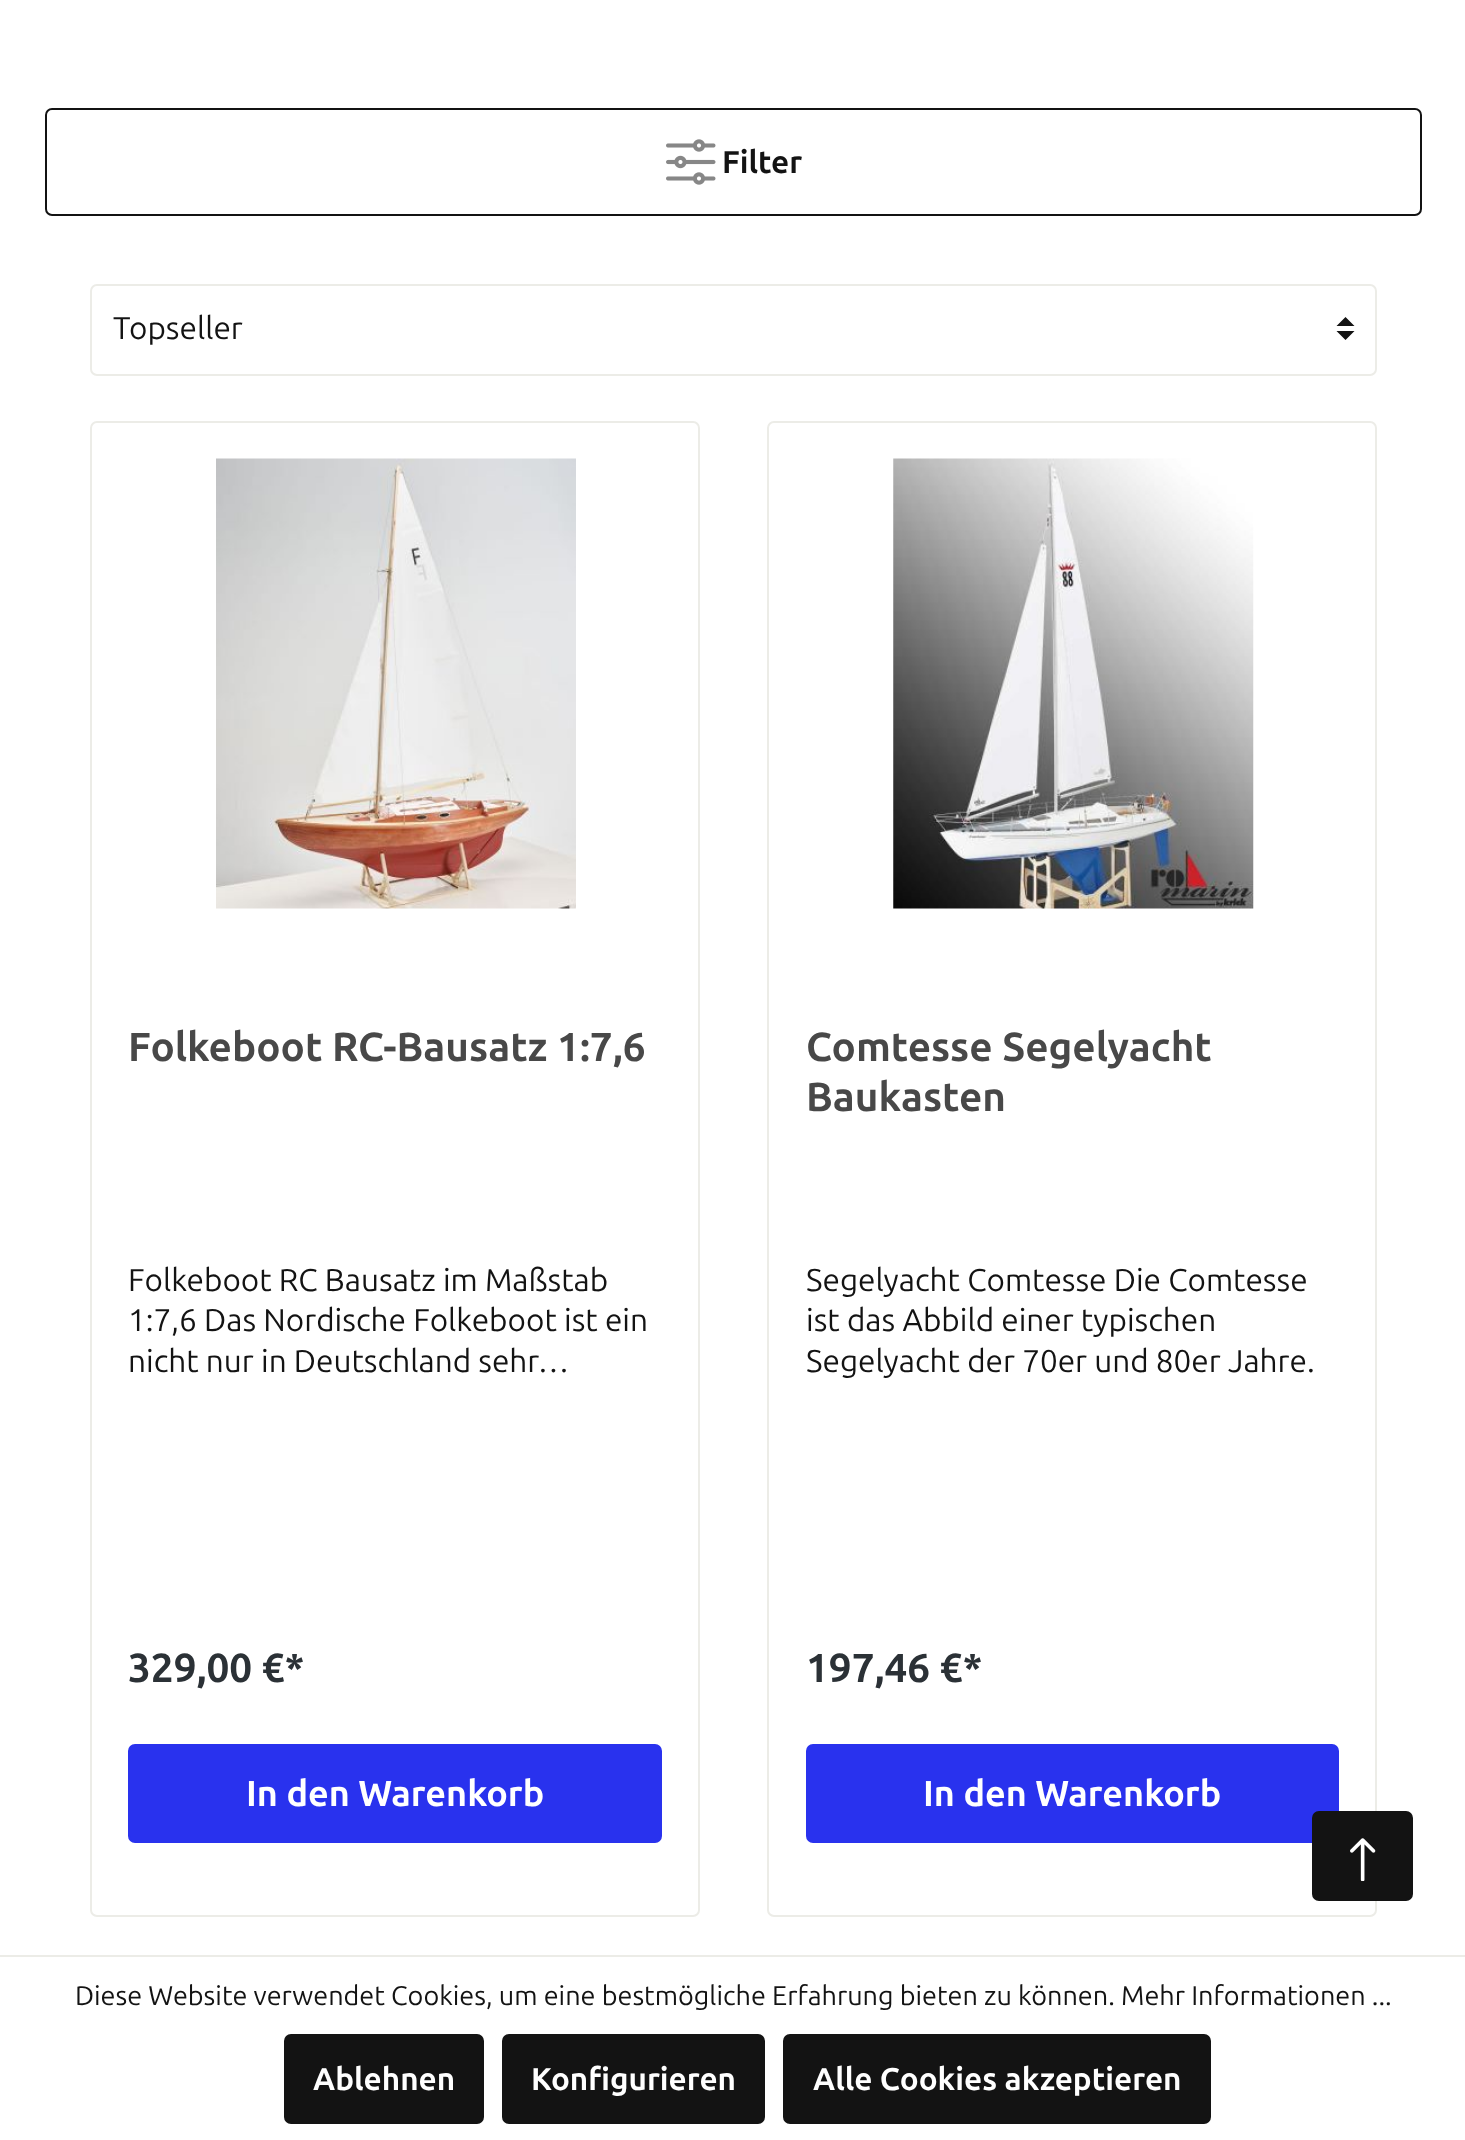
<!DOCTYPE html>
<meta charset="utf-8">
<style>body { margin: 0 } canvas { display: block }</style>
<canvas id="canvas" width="1465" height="2140"></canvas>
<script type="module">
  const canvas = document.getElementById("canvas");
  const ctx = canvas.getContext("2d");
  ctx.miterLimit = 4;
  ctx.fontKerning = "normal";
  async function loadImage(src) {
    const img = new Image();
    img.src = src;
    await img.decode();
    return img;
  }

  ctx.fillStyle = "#ffffff";
  ctx.fillRect(0, 0, 1465, 2140);
  ctx.beginPath();
  ctx.roundRect(46, 109, 1375, 106, 6);
  ctx.strokeStyle = "#131313";
  ctx.lineWidth = 2;
  ctx.stroke();
  ctx.drawImage(await loadImage("img1.png"), 666, 139, 50, 46);
  ctx.font = "bold 31.5px Ubuntu";
  ctx.fillStyle = "#131313";
  ctx.fillText("Filter", 722, 173);
  ctx.beginPath();
  ctx.moveTo(1345.5, 317);
  ctx.lineTo(1336.5, 326);
  ctx.lineTo(1354.5, 326);
  ctx.closePath();
  ctx.moveTo(1345.5, 340);
  ctx.lineTo(1336.5, 331);
  ctx.lineTo(1354.5, 331);
  ctx.closePath();
  ctx.fill();
  ctx.beginPath();
  ctx.roundRect(91, 285, 1285, 90, 6);
  ctx.strokeStyle = "#ecece7";
  ctx.stroke();
  ctx.font = "31.5px Ubuntu";
  ctx.fillText("Topseller", 113, 339);
  ctx.beginPath();
  ctx.roundRect(91, 422, 608, 1494, 6);
  ctx.stroke();
  ctx.drawImage(await loadImage("img2.png"), 216, 458, 360, 451);
  ctx.font = "bold 40.5px Ubuntu";
  ctx.fillStyle = "#484848";
  ctx.fillText("Folkeboot RC-Bausatz 1:7,6", 128, 1061);
  ctx.font = "31.5px Ubuntu";
  ctx.fillStyle = "#131313";
  ctx.fillText("Folkeboot RC Bausatz im Maßstab", 128, 1291);
  ctx.fillText("1:7,6 Das Nordische Folkeboot ist ein", 128, 1331);
  ctx.fillText("nicht nur in Deutschland sehr…", 128, 1372);
  ctx.font = "bold 40.5px Ubuntu";
  ctx.fillStyle = "#2b3136";
  ctx.fillText("329,00 €*", 128, 1682);
  ctx.fillStyle = "#2932ee";
  ctx.beginPath();
  ctx.roundRect(129, 1745, 532, 97, 6);
  ctx.fill();
  ctx.strokeStyle = "#2932ee";
  ctx.stroke();
  ctx.font = "bold 36px Ubuntu";
  ctx.fillStyle = "#ffffff";
  ctx.fillText("In den Warenkorb", 246, 1806);
  ctx.beginPath();
  ctx.roundRect(768, 422, 608, 1494, 6);
  ctx.strokeStyle = "#ecece7";
  ctx.stroke();
  ctx.drawImage(await loadImage("img3.png"), 893, 458, 361, 451);
  ctx.font = "bold 40.5px Ubuntu";
  ctx.fillStyle = "#484848";
  ctx.fillText("Comtesse Segelyacht", 806, 1061);
  ctx.fillText("Baukasten", 806, 1111);
  ctx.font = "31.5px Ubuntu";
  ctx.fillStyle = "#131313";
  ctx.fillText("Segelyacht Comtesse Die Comtesse", 806, 1291);
  ctx.fillText("ist das Abbild einer typischen", 806, 1331);
  ctx.fillText("Segelyacht der 70er und 80er Jahre.", 806, 1372);
  ctx.font = "bold 40.5px Ubuntu";
  ctx.fillStyle = "#2b3136";
  ctx.fillText("197,46 €*", 806, 1682);
  ctx.fillStyle = "#2932ee";
  ctx.beginPath();
  ctx.roundRect(807, 1745, 531, 97, 6);
  ctx.fill();
  ctx.strokeStyle = "#2932ee";
  ctx.stroke();
  ctx.font = "bold 36px Ubuntu";
  ctx.fillStyle = "#ffffff";
  ctx.fillText("In den Warenkorb", 923, 1806);
  ctx.fillStyle = "#131313";
  ctx.beginPath();
  ctx.roundRect(1313, 1812, 99, 88, 6);
  ctx.fill();
  ctx.strokeStyle = "#131313";
  ctx.stroke();
  ctx.drawImage(await loadImage("img4.png"), 1350, 1838, 26, 43);
  ctx.fillStyle = "#ecece7";
  ctx.fillRect(0, 1955, 1465, 2);
  ctx.font = "27px Ubuntu";
  ctx.fillStyle = "#131313";
  ctx.fillText("Diese Website verwendet Cookies, um eine bestmögliche Erfahrung bieten zu können. Mehr Informationen ...", 75, 2005);
  ctx.beginPath();
  ctx.roundRect(285, 2035, 198, 88, 6);
  ctx.fill();
  ctx.stroke();
  ctx.font = "bold 31.5px Ubuntu";
  ctx.fillStyle = "#ffffff";
  ctx.fillText("Ablehnen", 313, 2090);
  ctx.fillStyle = "#131313";
  ctx.beginPath();
  ctx.roundRect(503, 2035, 261, 88, 6);
  ctx.fill();
  ctx.stroke();
  ctx.fillStyle = "#ffffff";
  ctx.fillText("Konfigurieren", 531, 2090);
  ctx.fillStyle = "#131313";
  ctx.beginPath();
  ctx.roundRect(784, 2035, 426, 88, 6);
  ctx.fill();
  ctx.stroke();
  ctx.fillStyle = "#ffffff";
  ctx.fillText("Alle Cookies akzeptieren", 813, 2090);
</script>
